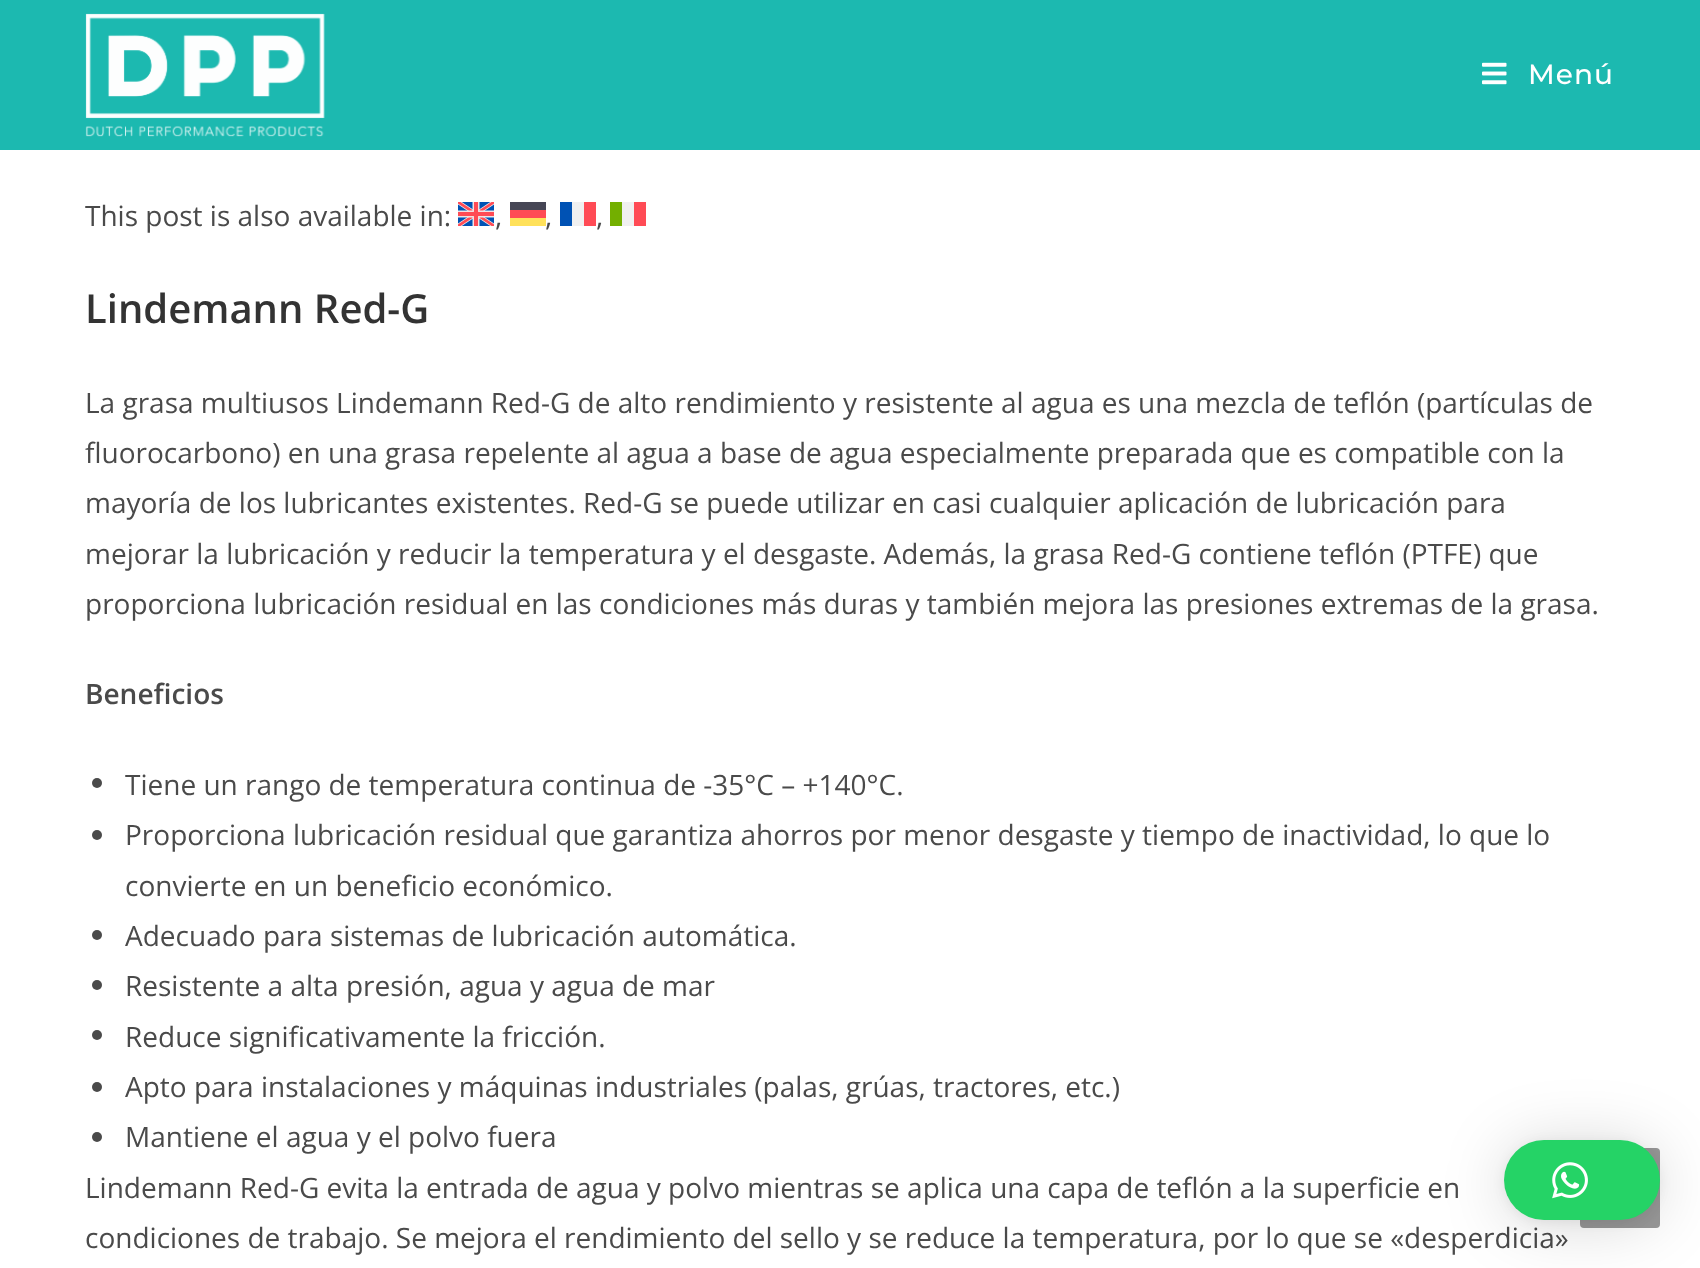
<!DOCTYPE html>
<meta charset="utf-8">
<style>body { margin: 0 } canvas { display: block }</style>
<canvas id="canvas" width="1700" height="1268"></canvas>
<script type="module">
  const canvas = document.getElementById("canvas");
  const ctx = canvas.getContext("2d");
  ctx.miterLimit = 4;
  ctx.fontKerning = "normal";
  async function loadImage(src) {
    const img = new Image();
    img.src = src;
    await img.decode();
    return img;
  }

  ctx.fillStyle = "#ffffff";
  ctx.fillRect(0, 0, 1700, 1268);
  ctx.fillStyle = "#1cb9b0";
  ctx.fillRect(0, 0, 1700, 150);
  ctx.drawImage(await loadImage("img1.png"), 85, 13, 240, 124);
  ctx.drawImage(await loadImage("img2.png"), 1482, 62, 25, 23);
  ctx.letterSpacing = "1px";
  ctx.font = "500 28px Montserrat";
  ctx.fillStyle = "#ffffff";
  ctx.fillText("Menú", 1528, 84);
  ctx.letterSpacing = "0px";
  ctx.font = "28px Open Sans";
  ctx.fillStyle = "#4a4a4a";
  ctx.fillText("This post is also available in:", 85, 226);
  ctx.drawImage(await loadImage("img3.png"), 458, 202, 36, 24);
  ctx.fillText(",", 495, 226);
  ctx.fillStyle = "#464655";
  ctx.fillRect(510, 202, 36, 8);
  ctx.fillStyle = "#ff4b55";
  ctx.fillRect(510, 210, 36, 8);
  ctx.fillStyle = "#ffe15a";
  ctx.fillRect(510, 218, 36, 8);
  ctx.fillStyle = "#4a4a4a";
  ctx.fillText(",", 545, 226);
  ctx.fillStyle = "#0052b4";
  ctx.fillRect(560, 202, 12, 24);
  ctx.fillStyle = "#f0f0f0";
  ctx.fillRect(572, 202, 12, 24);
  ctx.fillStyle = "#ff4b55";
  ctx.fillRect(584, 202, 12, 24);
  ctx.fillStyle = "#4a4a4a";
  ctx.fillText(",", 596, 226);
  ctx.fillStyle = "#73af00";
  ctx.fillRect(610, 202, 12, 24);
  ctx.fillStyle = "#f0f0f0";
  ctx.fillRect(622, 202, 12, 24);
  ctx.fillStyle = "#ff4b55";
  ctx.fillRect(634, 202, 12, 24);
  ctx.font = "600 40px Open Sans";
  ctx.fillStyle = "#333333";
  ctx.fillText("Lindemann Red-G", 85, 323);
  ctx.font = "28px Open Sans";
  ctx.fillStyle = "#4a4a4a";
  ctx.fillText("La grasa multiusos Lindemann Red-G de alto rendimiento y resistente al agua es una mezcla de teflón (partículas de", 85, 413);
  ctx.fillText("fluorocarbono) en una grasa repelente al agua a base de agua especialmente preparada que es compatible con la", 85, 463);
  ctx.fillText("mayoría de los lubricantes existentes. Red-G se puede utilizar en casi cualquier aplicación de lubricación para", 85, 513);
  ctx.fillText("mejorar la lubricación y reducir la temperatura y el desgaste. Además, la grasa Red-G contiene teflón (PTFE) que", 85, 564);
  ctx.fillText("proporciona lubricación residual en las condiciones más duras y también mejora las presiones extremas de la grasa.", 85, 614);
  ctx.font = "600 28px Open Sans";
  ctx.fillText("Beneficios", 85, 704);
  ctx.beginPath();
  ctx.arc(97, 783, 5, 0, Math.PI * 2);
  ctx.fill();
  ctx.font = "28px Open Sans";
  ctx.fillText("Tiene un rango de temperatura continua de -35°C – +140°C.", 125, 795);
  ctx.beginPath();
  ctx.arc(97, 835, 5, 0, Math.PI * 2);
  ctx.fill();
  ctx.fillText("Proporciona lubricación residual que garantiza ahorros por menor desgaste y tiempo de inactividad, lo que lo", 125, 845);
  ctx.fillText("convierte en un beneficio económico.", 125, 896);
  ctx.beginPath();
  ctx.arc(97, 935, 5, 0, Math.PI * 2);
  ctx.fill();
  ctx.fillText("Adecuado para sistemas de lubricación automática.", 125, 946);
  ctx.beginPath();
  ctx.arc(97, 985, 5, 0, Math.PI * 2);
  ctx.fill();
  ctx.fillText("Resistente a alta presión, agua y agua de mar", 125, 996);
  ctx.beginPath();
  ctx.arc(97, 1035, 5, 0, Math.PI * 2);
  ctx.fill();
  ctx.fillText("Reduce significativamente la fricción.", 125, 1047);
  ctx.beginPath();
  ctx.arc(97, 1087, 5, 0, Math.PI * 2);
  ctx.fill();
  ctx.fillText("Apto para instalaciones y máquinas industriales (palas, grúas, tractores, etc.)", 125, 1097);
  ctx.beginPath();
  ctx.arc(97, 1137, 5, 0, Math.PI * 2);
  ctx.fill();
  ctx.fillText("Mantiene el agua y el polvo fuera", 125, 1147);
  ctx.fillText("Lindemann Red-G evita la entrada de agua y polvo mientras se aplica una capa de teflón a la superficie en", 85, 1198);
  ctx.fillText("condiciones de trabajo. Se mejora el rendimiento del sello y se reduce la temperatura, por lo que se «desperdicia»", 85, 1248);
  ctx.fillStyle = "#999999";
  ctx.beginPath();
  ctx.roundRect(1580, 1148, 80, 80, 4);
  ctx.fill();
  ctx.fillStyle = "rgba(0, 0, 0, 0.16)";
  ctx.filter = "blur(32px)";
  ctx.beginPath();
  ctx.roundRect(1504, 1144, 156, 80, 40);
  ctx.fill();
  ctx.filter = "none";
  ctx.fillStyle = "rgba(0, 0, 0, 0.06)";
  ctx.filter = "blur(6px)";
  ctx.beginPath();
  ctx.roundRect(1504, 1142, 156, 80, 40);
  ctx.fill();
  ctx.filter = "none";
  ctx.fillStyle = "#25d366";
  ctx.beginPath();
  ctx.roundRect(1504, 1140, 156, 80, 40);
  ctx.fill();
  ctx.drawImage(await loadImage("img4.png"), 1552, 1162, 36, 37);
</script>
